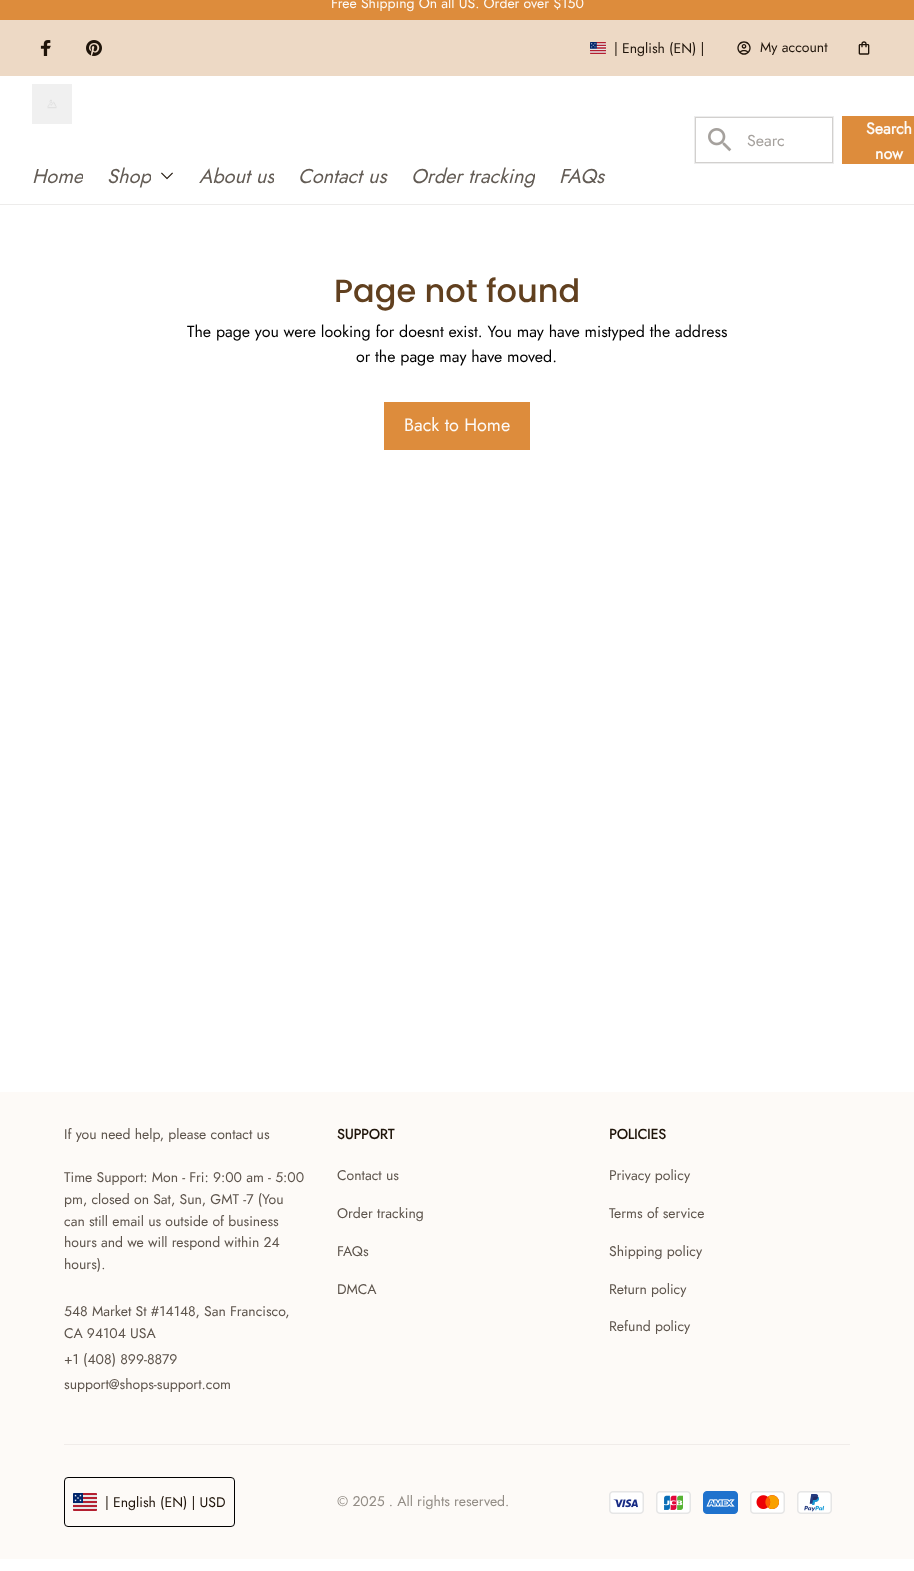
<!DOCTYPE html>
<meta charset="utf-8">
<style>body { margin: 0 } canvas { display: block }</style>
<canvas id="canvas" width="914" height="1571"></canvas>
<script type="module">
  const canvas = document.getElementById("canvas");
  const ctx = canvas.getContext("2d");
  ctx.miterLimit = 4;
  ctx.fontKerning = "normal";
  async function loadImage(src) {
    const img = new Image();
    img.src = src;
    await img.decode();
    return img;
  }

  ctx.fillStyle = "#ffffff";
  ctx.fillRect(0, 0, 914, 1571);
  ctx.fillStyle = "#dd8c3c";
  ctx.fillRect(0, 0, 914, 20);
  ctx.font = "14px Jost";
  ctx.fillStyle = "#fdfaf7";
  ctx.fillText("Free Shipping On all US. Order over $150", 331, 8);
  ctx.fillStyle = "#edeceb";
  ctx.fillRect(0, 204, 914, 1);
  ctx.fillStyle = "#edd9c5";
  ctx.fillRect(0, 20, 914, 56);
  ctx.drawImage(await loadImage("img1.png"), 40, 40, 11, 16);
  ctx.drawImage(await loadImage("img2.png"), 86, 40, 16, 16);
  ctx.drawImage(await loadImage("img3.png"), 590, 42, 16, 12);
  ctx.fillStyle = "#1f140a";
  ctx.fillText("| English (EN) |", 614, 53);
  ctx.drawImage(await loadImage("img4.png"), 737, 41, 14, 14);
  ctx.fillText("My account", 760, 52);
  ctx.drawImage(await loadImage("img5.png"), 858, 41, 12, 14);
  ctx.strokeStyle = "#ededed";
  ctx.strokeRect(694.5, 116.5, 139, 47);
  ctx.strokeStyle = "#d2d0ce";
  ctx.strokeRect(695.5, 117.5, 137, 45);
  ctx.drawImage(await loadImage("img6.png"), 708, 128, 24, 24);
  ctx.font = "16px Jost";
  ctx.fillStyle = "#a5a19d";
  ctx.fillText("Searc", 747, 146);
  ctx.fillStyle = "#dd8c3c";
  ctx.fillRect(842, 116, 72, 48);
  ctx.font = "bold 16px Jost";
  ctx.fillStyle = "#fdfaf7";
  ctx.fillText("Search", 866, 134);
  ctx.fillText("now", 875, 159);
  ctx.drawImage(await loadImage("img7.png"), 32, 84, 40, 40);
  ctx.save();
  ctx.beginPath();
  ctx.rect(32, 161, 51, 31);
  ctx.clip();
  ctx.font = "italic 20px Jost";
  ctx.fillStyle = "#625b54";
  ctx.fillText("Home", 32, 183);
  ctx.restore();
  ctx.save();
  ctx.beginPath();
  ctx.rect(107, 161, 44, 31);
  ctx.clip();
  ctx.font = "italic 20px Jost";
  ctx.fillStyle = "#625b54";
  ctx.fillText("Shop", 107, 183);
  ctx.restore();
  ctx.drawImage(await loadImage("img8.png"), 161, 172, 12, 8);
  ctx.save();
  ctx.beginPath();
  ctx.rect(199, 161, 75, 31);
  ctx.clip();
  ctx.font = "italic 20px Jost";
  ctx.fillStyle = "#625b54";
  ctx.fillText("About us", 199, 183);
  ctx.restore();
  ctx.font = "italic 20px Jost";
  ctx.fillStyle = "#625b54";
  ctx.fillText("Contact us", 298, 183);
  ctx.save();
  ctx.beginPath();
  ctx.rect(411, 161, 124, 31);
  ctx.clip();
  ctx.fillText("Order tracking", 411, 183);
  ctx.restore();
  ctx.fillText("FAQs", 559, 183);
  ctx.font = "500 32px Poppins";
  ctx.fillStyle = "#61401f";
  ctx.fillText("Page not found", 334, 302);
  ctx.font = "16px Jost";
  ctx.fillStyle = "#000000";
  ctx.fillText("The page you were looking for doesnt exist. You may have mistyped the address", 187, 337);
  ctx.fillText("or the page may have moved.", 356, 362);
  ctx.fillStyle = "#dd8c3c";
  ctx.fillRect(384, 402, 146, 48);
  ctx.font = "18px Jost";
  ctx.fillStyle = "#fdfaf7";
  ctx.fillText("Back to Home", 404, 431);
  ctx.fillRect(0, 1092, 914, 467);
  ctx.font = "14px Jost";
  ctx.fillStyle = "#5d544c";
  ctx.fillText("If you need help, please contact us", 64, 1139);
  ctx.fillText("Time Support: Mon - Fri: 9:00 am - 5:00", 64, 1182);
  ctx.fillText("pm, closed on Sat, Sun, GMT -7 (You", 64, 1204);
  ctx.fillText("can still email us outside of business", 64, 1226);
  ctx.fillText("hours and we will respond within 24", 64, 1247);
  ctx.fillText("hours).", 64, 1269);
  ctx.fillText("548 Market St #14148, San Francisco,", 64, 1316);
  ctx.fillText("CA 94104 USA", 64, 1338);
  ctx.fillText("+1 (408) 899-8879", 64, 1364);
  ctx.fillText("support@shops-support.com", 64, 1389);
  ctx.font = "bold 14px Jost";
  ctx.fillStyle = "#1f140a";
  ctx.fillText("SUPPORT", 337, 1139);
  ctx.font = "14px Jost";
  ctx.fillStyle = "#5d544c";
  ctx.fillText("Contact us", 337, 1180);
  ctx.fillText("Order tracking", 337, 1218);
  ctx.fillText("FAQs", 337, 1256);
  ctx.fillText("DMCA", 337, 1294);
  ctx.font = "bold 14px Jost";
  ctx.fillStyle = "#1f140a";
  ctx.fillText("POLICIES", 609, 1139);
  ctx.font = "14px Jost";
  ctx.fillStyle = "#5d544c";
  ctx.fillText("Privacy policy", 609, 1180);
  ctx.fillText("Terms of service", 609, 1218);
  ctx.fillText("Shipping policy", 609, 1256);
  ctx.fillText("Return policy", 609, 1294);
  ctx.fillText("Refund policy", 609, 1331);
  ctx.fillStyle = "#f0ece9";
  ctx.fillRect(64, 1444, 786, 1);
  ctx.beginPath();
  ctx.roundRect(64.5, 1477.5, 170, 49, 3.5);
  ctx.strokeStyle = "#000000";
  ctx.stroke();
  ctx.drawImage(await loadImage("img9.png"), 73, 1493, 24, 18);
  ctx.fillStyle = "#1f140a";
  ctx.fillText("| English (EN) | USD", 105, 1507);
  ctx.fillStyle = "#928c85";
  ctx.fillText("© 2025 . All rights reserved.", 337, 1506);
  ctx.drawImage(await loadImage("img10.png"), 609, 1491, 35, 23);
  ctx.drawImage(await loadImage("img11.png"), 656, 1491, 35, 23);
  ctx.drawImage(await loadImage("img12.png"), 703, 1491, 35, 23);
  ctx.drawImage(await loadImage("img13.png"), 750, 1491, 35, 23);
  ctx.drawImage(await loadImage("img14.png"), 797, 1491, 35, 23);
</script>
